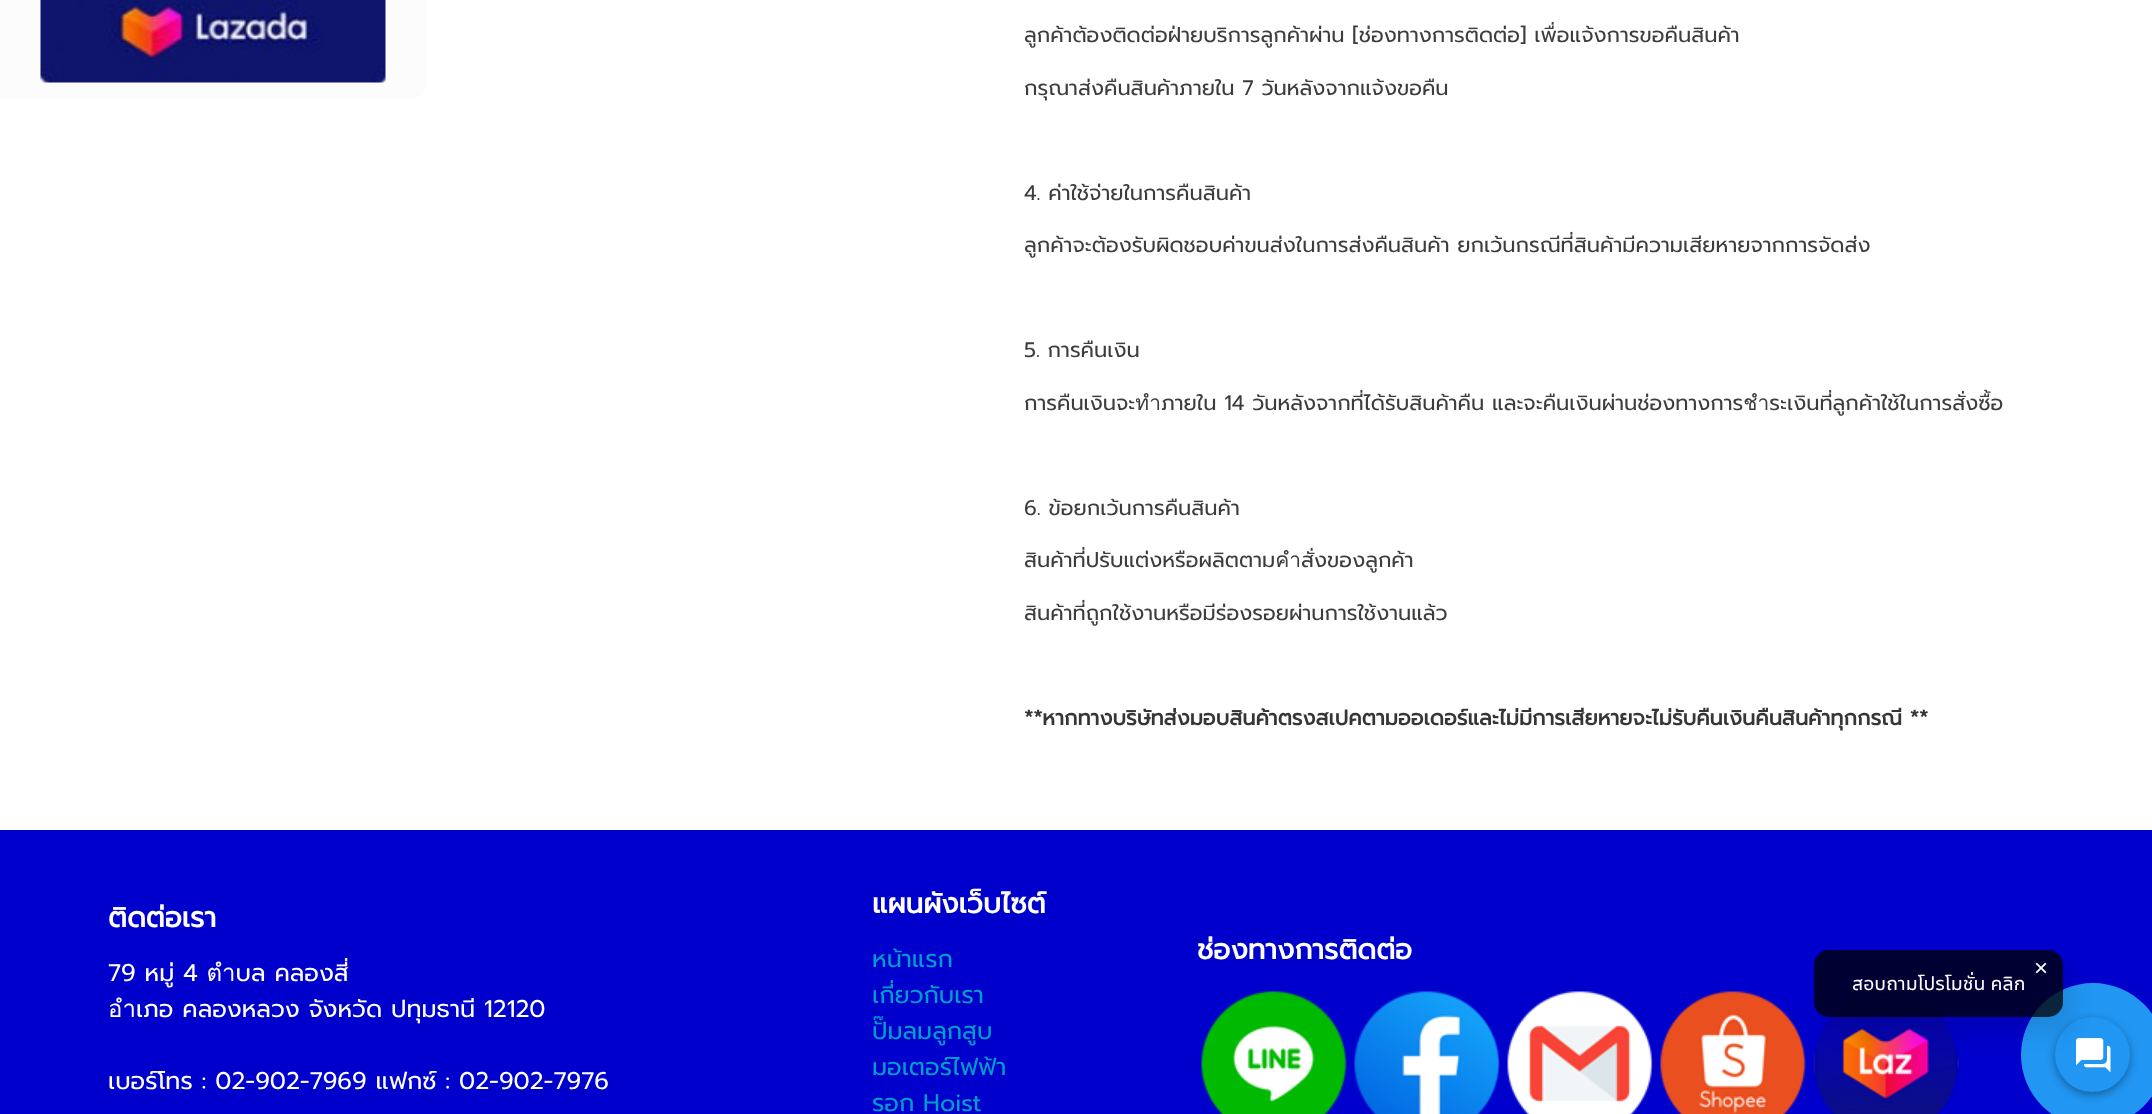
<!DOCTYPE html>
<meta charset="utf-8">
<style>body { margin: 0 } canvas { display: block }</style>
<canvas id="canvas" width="2152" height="1114"></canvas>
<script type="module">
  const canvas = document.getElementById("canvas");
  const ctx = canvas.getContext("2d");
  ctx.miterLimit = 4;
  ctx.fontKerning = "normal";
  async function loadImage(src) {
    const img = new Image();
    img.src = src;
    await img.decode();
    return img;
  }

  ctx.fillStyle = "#ffffff";
  ctx.fillRect(0, 0, 2152, 1114);
  ctx.fillStyle = "#fcfcfc";
  ctx.beginPath();
  ctx.moveTo(0, -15);
  ctx.lineTo(426, -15);
  ctx.lineTo(426, 84);
  ctx.bezierCurveTo(426, 92.5, 419.5, 99, 411, 99);
  ctx.lineTo(0, 99);
  ctx.closePath();
  ctx.fill();
  ctx.drawImage(await loadImage("img1.png"), 40, 0, 346, 83);
  ctx.font = "21px Prompt";
  ctx.fillStyle = "#3d3d3d";
  ctx.fillText("ลูกค้าต้องติดต่อฝ่ายบริการลูกค้าผ่าน [ช่องทางการติดต่อ] เพื่อแจ้งการขอคืนสินค้า", 1024, 42);
  ctx.fillText("กรุณาส่งคืนสินค้าภายใน 7 วันหลังจากแจ้งขอคืน", 1024, 95);
  ctx.fillText("4. ค่าใช้จ่ายในการคืนสินค้า", 1024, 200);
  ctx.fillText("ลูกค้าจะต้องรับผิดชอบค่าขนส่งในการส่งคืนสินค้า ยกเว้นกรณีที่สินค้ามีความเสียหายจากการจัดส่ง", 1024, 252);
  ctx.fillText("5. การคืนเงิน", 1024, 357);
  ctx.fillText("การคืนเงินจะทำภายใน 14 วันหลังจากที่ได้รับสินค้าคืน และจะคืนเงินผ่านช่องทางการชำระเงินที่ลูกค้าใช้ในการสั่งซื้อ", 1024, 410);
  ctx.fillText("6. ข้อยกเว้นการคืนสินค้า", 1024, 515);
  ctx.fillText("สินค้าที่ปรับแต่งหรือผลิตตามคำสั่งของลูกค้า", 1024, 567);
  ctx.fillText("สินค้าที่ถูกใช้งานหรือมีร่องรอยผ่านการใช้งานแล้ว", 1024, 620);
  ctx.font = "bold 21px Prompt";
  ctx.fillStyle = "#363636";
  ctx.fillText("**หากทางบริษัทส่งมอบสินค้าตรงสเปคตามออเดอร์และไม่มีการเสียหายจะไม่รับคืนเงินคืนสินค้าทุกกรณี **", 1024, 725);
  ctx.fillStyle = "#0000cd";
  ctx.fillRect(0, 830, 2152, 284);
  ctx.font = "bold 28px Prompt";
  ctx.fillStyle = "#ffffff";
  ctx.fillText("ติดต่อเรา", 108, 927);
  ctx.font = "24px Prompt";
  ctx.fillText("79 หมู่ 4 ตำบล คลองสี่", 108, 981);
  ctx.fillText("อำเภอ คลองหลวง จังหวัด ปทุมธานี 12120", 108, 1017);
  ctx.fillText("เบอร์โทร : 02-902-7969 แฟกซ์ : 02-902-7976", 108, 1089);
  ctx.font = "bold 28px Prompt";
  ctx.fillText("แผนผังเว็บไซต์", 872, 913);
  ctx.font = "24px Prompt";
  ctx.fillStyle = "#009eca";
  ctx.fillText("หน้าแรก", 872, 967);
  ctx.fillText("เกี่ยวกับเรา", 872, 1003);
  ctx.fillText("ปั๊มลมลูกสูบ", 872, 1039);
  ctx.fillText("มอเตอร์ไฟฟ้า", 872, 1075);
  ctx.fillText("รอก Hoist", 872, 1111);
  ctx.font = "bold 28px Prompt";
  ctx.fillStyle = "#ffffff";
  ctx.fillText("ช่องทางการติดต่อ", 1197, 959);
  ctx.drawImage(await loadImage("img2.png"), 1201, 991, 146, 123);
  ctx.drawImage(await loadImage("img3.png"), 1354, 991, 146, 123);
  ctx.drawImage(await loadImage("img4.png"), 1507, 991, 146, 123);
  ctx.drawImage(await loadImage("img5.png"), 1660, 991, 146, 123);
  ctx.drawImage(await loadImage("img6.png"), 1813, 991, 146, 123);
  ctx.fillStyle = "#2196f3";
  ctx.beginPath();
  ctx.arc(2093, 1055, 72, 0, Math.PI * 2);
  ctx.fill();
  ctx.fillStyle = "rgba(0, 0, 0, 0.5)";
  ctx.beginPath();
  ctx.roundRect(1814, 950, 249, 67, 15);
  ctx.fill();
  ctx.fillStyle = "rgba(0, 0, 0, 0.35)";
  ctx.filter = "blur(4px)";
  ctx.beginPath();
  ctx.roundRect(2055, 1020, 75, 75, 37.5);
  ctx.fill();
  ctx.filter = "none";
  ctx.fillStyle = "#2196f3";
  ctx.beginPath();
  ctx.arc(2092.5, 1054.5, 37.5, 0, Math.PI * 2);
  ctx.fill();
  ctx.drawImage(await loadImage("img7.png"), 2076, 1038, 35, 35);
  ctx.save();
  ctx.beginPath();
  ctx.moveTo(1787, 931);
  ctx.lineTo(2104, 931);
  ctx.lineTo(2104, 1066);
  ctx.lineTo(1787, 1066);
  ctx.closePath();
  ctx.moveTo(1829, 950);
  ctx.lineTo(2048, 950);
  ctx.bezierCurveTo(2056.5, 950, 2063, 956.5, 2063, 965);
  ctx.lineTo(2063, 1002);
  ctx.bezierCurveTo(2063, 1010.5, 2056.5, 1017, 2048, 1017);
  ctx.lineTo(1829, 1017);
  ctx.bezierCurveTo(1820.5, 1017, 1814, 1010.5, 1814, 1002);
  ctx.lineTo(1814, 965);
  ctx.bezierCurveTo(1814, 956.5, 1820.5, 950, 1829, 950);
  ctx.closePath();
  ctx.clip("evenodd");
  ctx.fillStyle = "rgba(0, 0, 0, 0.1)";
  ctx.filter = "blur(11px)";
  ctx.beginPath();
  ctx.roundRect(1821, 965, 249, 67, 15);
  ctx.fill();
  ctx.filter = "none";
  ctx.restore();
  ctx.fillStyle = "rgba(0, 0, 0, 0.5)";
  ctx.beginPath();
  ctx.roundRect(1814, 950, 249, 67, 15);
  ctx.fill();
  ctx.font = "24px Liberation Sans";
  ctx.fillStyle = "#ffffff";
  ctx.fillText("×", 2034, 976);
  ctx.font = "19.5px Noto Sans Thai UI";
  ctx.fillText("สอบถามโปรโมชั่น คลิก", 1852, 990);
</script>
